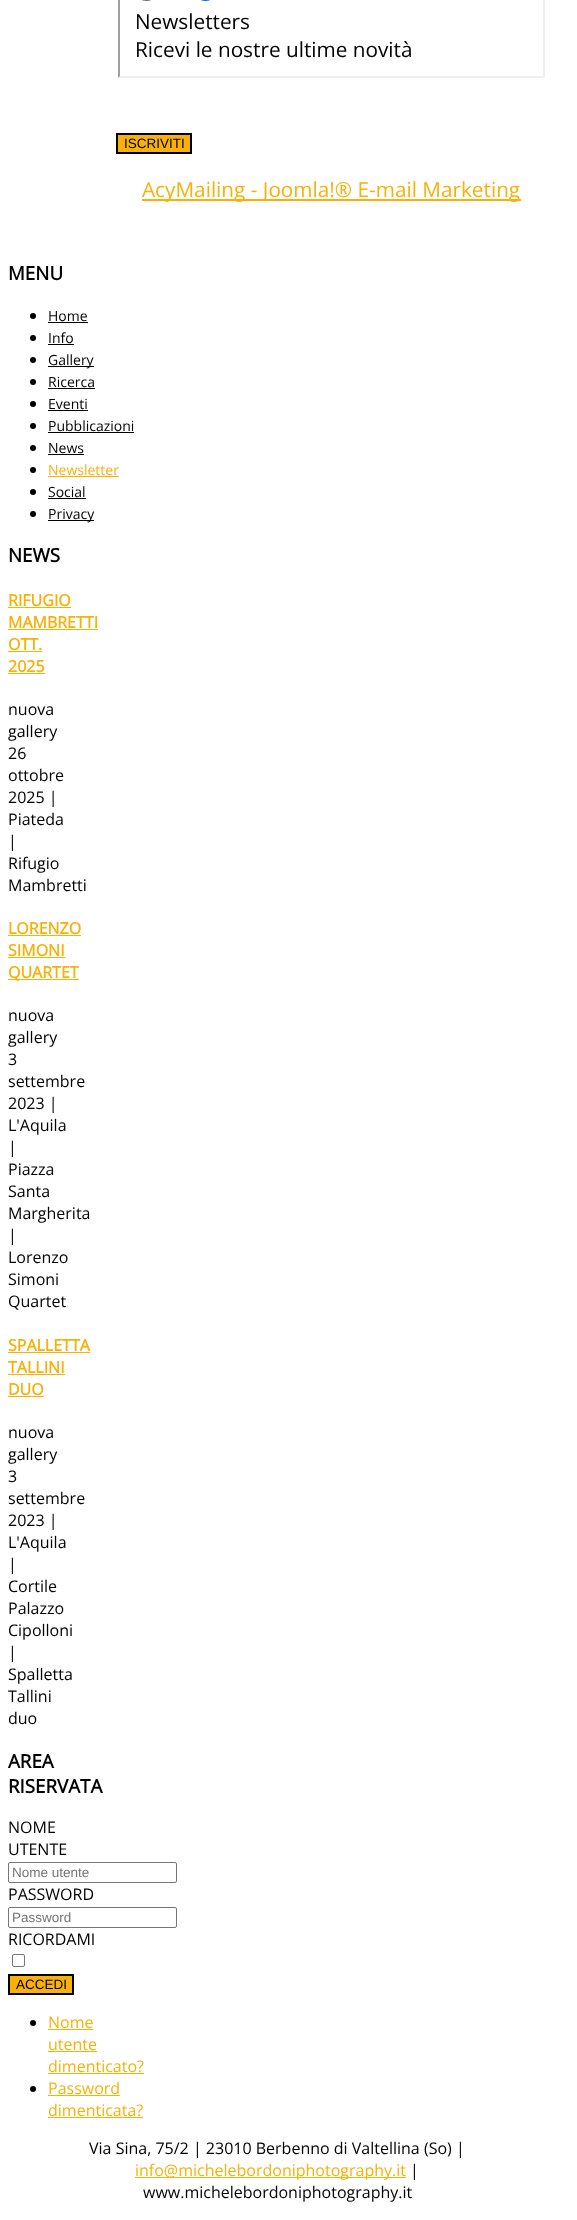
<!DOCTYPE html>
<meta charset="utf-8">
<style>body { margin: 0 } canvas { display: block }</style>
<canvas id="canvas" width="577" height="2220"></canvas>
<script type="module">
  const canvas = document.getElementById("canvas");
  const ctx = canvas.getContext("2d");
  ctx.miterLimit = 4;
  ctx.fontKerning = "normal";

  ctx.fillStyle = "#ffffff";
  ctx.fillRect(0, 0, 577, 2220);
  ctx.fillStyle = "#efefef";
  ctx.beginPath();
  ctx.moveTo(545, -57);
  ctx.lineTo(545, 78);
  ctx.lineTo(543, 76);
  ctx.lineTo(543, -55);
  ctx.closePath();
  ctx.fill();
  ctx.beginPath();
  ctx.moveTo(545, 78);
  ctx.lineTo(118, 78);
  ctx.lineTo(120, 76);
  ctx.lineTo(543, 76);
  ctx.closePath();
  ctx.fill();
  ctx.fillStyle = "#9f9f9f";
  ctx.beginPath();
  ctx.moveTo(118, 78);
  ctx.lineTo(118, -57);
  ctx.lineTo(120, -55);
  ctx.lineTo(120, 76);
  ctx.closePath();
  ctx.fill();
  ctx.beginPath();
  ctx.roundRect(140.5, -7.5, 12, 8, 6);
  ctx.strokeStyle = "#767676";
  ctx.stroke();
  ctx.beginPath();
  ctx.roundRect(199.5, -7.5, 12, 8, 6);
  ctx.strokeStyle = "#0075ff";
  ctx.stroke();
  ctx.font = "20.75px Open Sans";
  ctx.fillStyle = "#000000";
  ctx.fillText("Newsletters", 135, 29);
  ctx.fillText("Ricevi le nostre ultime novità", 135, 57);
  ctx.fillStyle = "#f9b10a";
  ctx.beginPath();
  ctx.rect(117, 134, 74, 19);
  ctx.fill();
  ctx.strokeStyle = "#000000";
  ctx.lineWidth = 2;
  ctx.stroke();
  ctx.font = "13.5px Liberation Sans";
  ctx.fillStyle = "#000000";
  ctx.fillText("ISCRIVITI", 124, 148);
  ctx.fillStyle = "#f9b10a";
  ctx.fillRect(142, 199, 379, 2);
  ctx.font = "20.75px Open Sans";
  ctx.fillText("AcyMailing - Joomla!® E-mail Marketing", 142, 197);
  ctx.font = "bold 18.75px Open Sans";
  ctx.fillStyle = "#000000";
  ctx.fillText("MENU", 8, 280);
  ctx.beginPath();
  ctx.arc(33, 316, 3, 0, Math.PI * 2);
  ctx.fill();
  ctx.font = "14px Open Sans";
  ctx.fillText("Home", 48, 321);
  ctx.fillRect(48, 322, 40, 1);
  ctx.beginPath();
  ctx.arc(33, 338, 3, 0, Math.PI * 2);
  ctx.fill();
  ctx.fillText("Info", 48, 343);
  ctx.fillRect(48, 344, 26, 1);
  ctx.beginPath();
  ctx.arc(33, 360, 3, 0, Math.PI * 2);
  ctx.fill();
  ctx.fillRect(48, 366, 46, 1);
  ctx.fillText("Gallery", 48, 365);
  ctx.beginPath();
  ctx.arc(33, 382, 3, 0, Math.PI * 2);
  ctx.fill();
  ctx.fillText("Ricerca", 48, 387);
  ctx.fillRect(48, 388, 47, 1);
  ctx.beginPath();
  ctx.arc(33, 404, 3, 0, Math.PI * 2);
  ctx.fill();
  ctx.fillText("Eventi", 48, 409);
  ctx.fillRect(48, 410, 40, 1);
  ctx.beginPath();
  ctx.arc(33, 426, 3, 0, Math.PI * 2);
  ctx.fill();
  ctx.fillText("Pubblicazioni", 48, 431);
  ctx.fillRect(48, 432, 86, 1);
  ctx.beginPath();
  ctx.arc(33, 448, 3, 0, Math.PI * 2);
  ctx.fill();
  ctx.fillText("News", 48, 453);
  ctx.fillRect(48, 454, 36, 1);
  ctx.beginPath();
  ctx.arc(33, 470, 3, 0, Math.PI * 2);
  ctx.fill();
  ctx.fillStyle = "#f9b10a";
  ctx.fillText("Newsletter", 48, 475);
  ctx.fillRect(48, 476, 71, 1);
  ctx.fillStyle = "#000000";
  ctx.beginPath();
  ctx.arc(33, 492, 3, 0, Math.PI * 2);
  ctx.fill();
  ctx.fillText("Social", 48, 497);
  ctx.fillRect(48, 498, 38, 1);
  ctx.beginPath();
  ctx.arc(33, 514, 3, 0, Math.PI * 2);
  ctx.fill();
  ctx.fillRect(48, 520, 46, 1);
  ctx.fillText("Privacy", 48, 519);
  ctx.font = "bold 18.75px Open Sans";
  ctx.fillText("NEWS", 8, 562);
  ctx.font = "bold 16px Open Sans";
  ctx.fillStyle = "#f9b10a";
  ctx.fillText("RIFUGIO", 8, 606);
  ctx.fillRect(8, 607, 63, 1);
  ctx.fillText("MAMBRETTI", 8, 628);
  ctx.fillRect(8, 629, 90, 1);
  ctx.fillText("OTT.", 8, 650);
  ctx.fillRect(8, 651, 34, 1);
  ctx.fillText("2025", 8, 672);
  ctx.fillRect(8, 673, 37, 1);
  ctx.font = "16px Open Sans";
  ctx.fillStyle = "#000000";
  ctx.fillText("nuova", 8, 715);
  ctx.fillText("gallery", 8, 737);
  ctx.fillText("26", 8, 759);
  ctx.fillText("ottobre", 8, 781);
  ctx.fillText("2025 |", 8, 803);
  ctx.fillText("Piateda", 8, 825);
  ctx.fillText("|", 8, 847);
  ctx.fillText("Rifugio", 8, 869);
  ctx.fillText("Mambretti", 8, 891);
  ctx.font = "bold 16px Open Sans";
  ctx.fillStyle = "#f9b10a";
  ctx.fillText("LORENZO", 8, 934);
  ctx.fillRect(8, 935, 73, 1);
  ctx.fillText("SIMONI", 8, 956);
  ctx.fillRect(8, 957, 57, 1);
  ctx.fillRect(8, 979, 71, 1);
  ctx.fillText("QUARTET", 8, 978);
  ctx.font = "16px Open Sans";
  ctx.fillStyle = "#000000";
  ctx.fillText("nuova", 8, 1021);
  ctx.fillText("gallery", 8, 1043);
  ctx.fillText("3", 8, 1065);
  ctx.fillText("settembre", 8, 1087);
  ctx.fillText("2023 |", 8, 1109);
  ctx.fillText("L'Aquila", 8, 1131);
  ctx.fillText("|", 8, 1153);
  ctx.fillText("Piazza", 8, 1175);
  ctx.fillText("Santa", 8, 1197);
  ctx.fillText("Margherita", 8, 1219);
  ctx.fillText("|", 8, 1241);
  ctx.fillText("Lorenzo", 8, 1263);
  ctx.fillText("Simoni", 8, 1285);
  ctx.fillText("Quartet", 8, 1307);
  ctx.font = "bold 16px Open Sans";
  ctx.fillStyle = "#f9b10a";
  ctx.fillText("SPALLETTA", 8, 1351);
  ctx.fillRect(8, 1352, 82, 1);
  ctx.fillText("TALLINI", 8, 1373);
  ctx.fillRect(8, 1374, 57, 1);
  ctx.fillText("DUO", 8, 1395);
  ctx.fillRect(8, 1396, 36, 1);
  ctx.font = "16px Open Sans";
  ctx.fillStyle = "#000000";
  ctx.fillText("nuova", 8, 1438);
  ctx.fillText("gallery", 8, 1460);
  ctx.fillText("3", 8, 1482);
  ctx.fillText("settembre", 8, 1504);
  ctx.fillText("2023 |", 8, 1526);
  ctx.fillText("L'Aquila", 8, 1548);
  ctx.fillText("|", 8, 1570);
  ctx.fillText("Cortile", 8, 1592);
  ctx.fillText("Palazzo", 8, 1614);
  ctx.fillText("Cipolloni", 8, 1636);
  ctx.fillText("|", 8, 1658);
  ctx.fillText("Spalletta", 8, 1680);
  ctx.fillText("Tallini", 8, 1702);
  ctx.fillText("duo", 8, 1724);
  ctx.font = "bold 18.75px Open Sans";
  ctx.fillText("AREA", 8, 1768);
  ctx.fillText("RISERVATA", 8, 1793);
  ctx.font = "16px Open Sans";
  ctx.fillText("NOME", 8, 1833);
  ctx.fillText("UTENTE", 8, 1855);
  ctx.beginPath();
  ctx.roundRect(8.5, 1862.5, 168, 20, 1.5);
  ctx.strokeStyle = "#767676";
  ctx.lineWidth = 1;
  ctx.stroke();
  ctx.font = "13.5px Liberation Sans";
  ctx.fillStyle = "#757575";
  ctx.fillText("Nome utente", 12, 1877);
  ctx.font = "16px Open Sans";
  ctx.fillStyle = "#000000";
  ctx.fillText("PASSWORD", 8, 1900);
  ctx.beginPath();
  ctx.roundRect(8.5, 1907.5, 168, 20, 1.5);
  ctx.stroke();
  ctx.font = "13.5px Liberation Sans";
  ctx.fillStyle = "#757575";
  ctx.fillText("Password", 12, 1922);
  ctx.font = "16px Open Sans";
  ctx.fillStyle = "#000000";
  ctx.fillText("RICORDAMI", 8, 1945);
  ctx.beginPath();
  ctx.roundRect(12.5, 1954.5, 12, 12, 1.5);
  ctx.stroke();
  ctx.fillStyle = "#f9b10a";
  ctx.beginPath();
  ctx.rect(9, 1975, 64, 19);
  ctx.fill();
  ctx.strokeStyle = "#000000";
  ctx.lineWidth = 2;
  ctx.stroke();
  ctx.font = "13.5px Liberation Sans";
  ctx.fillStyle = "#000000";
  ctx.fillText("ACCEDI", 16, 1989);
  ctx.beginPath();
  ctx.arc(33, 2023, 3, 0, Math.PI * 2);
  ctx.fill();
  ctx.font = "16px Open Sans";
  ctx.fillStyle = "#f9b10a";
  ctx.fillText("Nome", 48, 2028);
  ctx.fillRect(48, 2029, 45, 1);
  ctx.fillText("utente", 48, 2050);
  ctx.fillRect(48, 2051, 49, 1);
  ctx.fillText("dimenticato?", 48, 2072);
  ctx.fillRect(48, 2073, 96, 1);
  ctx.fillStyle = "#000000";
  ctx.beginPath();
  ctx.arc(33, 2089, 3, 0, Math.PI * 2);
  ctx.fill();
  ctx.fillStyle = "#f9b10a";
  ctx.fillText("Password", 48, 2094);
  ctx.fillRect(48, 2095, 72, 1);
  ctx.fillText("dimenticata?", 48, 2116);
  ctx.fillRect(48, 2117, 95, 1);
  ctx.fillStyle = "#000000";
  ctx.fillText("Via Sina, 75/2 | 23010 Berbenno di Valtellina (So) |", 89, 2154);
  ctx.fillStyle = "#f9b10a";
  ctx.fillRect(135, 2177, 271, 1);
  ctx.fillText("info@michelebordoniphotography.it", 135, 2176);
  ctx.fillStyle = "#000000";
  ctx.fillText("|", 410, 2176);
  ctx.fillText("www.michelebordoniphotography.it", 143, 2198);
</script>
